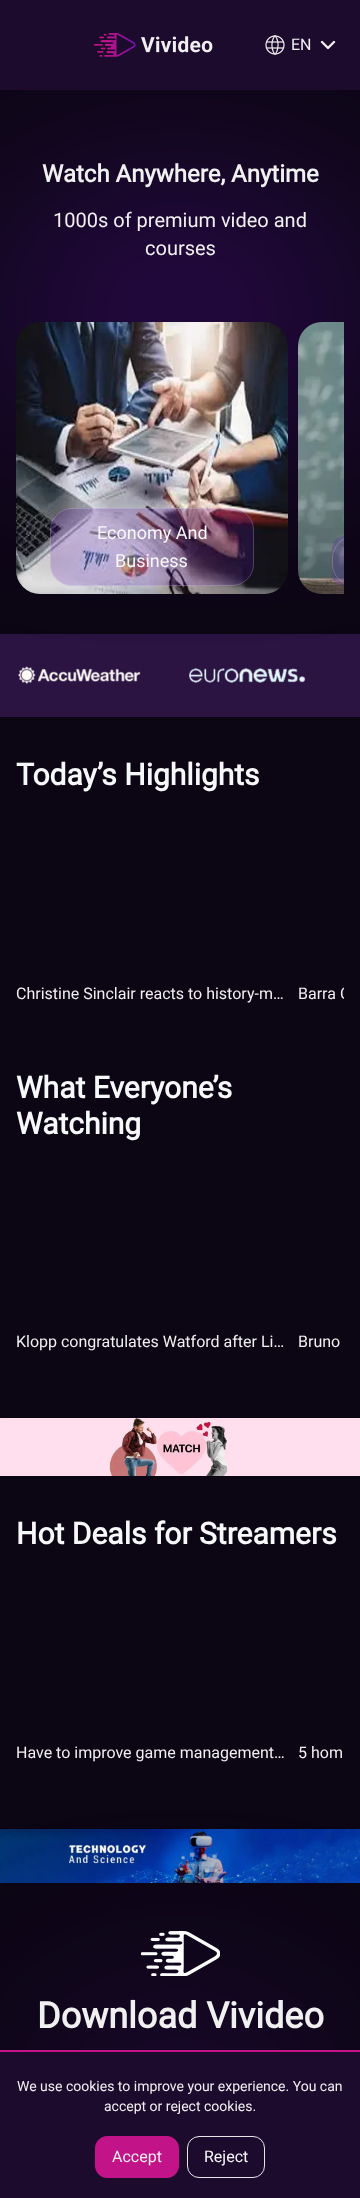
<!DOCTYPE html>
<meta charset="utf-8">
<style>body { margin: 0 } canvas { display: block }</style>
<canvas id="canvas" width="360" height="2198"></canvas>
<script type="module">
  const canvas = document.getElementById("canvas");
  const ctx = canvas.getContext("2d");
  ctx.miterLimit = 4;
  ctx.fontKerning = "normal";
  async function loadImage(src) {
    const img = new Image();
    img.src = src;
    await img.decode();
    return img;
  }

  ctx.fillStyle = "#0c0614";
  ctx.fillRect(0, 0, 360, 2198);
  ctx.fillStyle = "#2b1442";
  ctx.fillRect(0, 634, 360, 83);
  ctx.fillStyle = "#5f11ad";
  ctx.filter = "blur(120px)";
  ctx.beginPath();
  ctx.roundRect(16, 262, 328, 100, 50);
  ctx.fill();
  ctx.filter = "none";
  ctx.fillStyle = "#1d0b2e";
  ctx.fillRect(0, 0, 360, 90);
  ctx.drawImage(await loadImage("img1.png"), 94, 33, 119, 24);
  ctx.drawImage(await loadImage("img2.png"), 265, 35, 20, 20);
  ctx.font = "16px Roboto";
  ctx.fillStyle = "#f0f0f0";
  ctx.fillText("EN", 291, 50);
  ctx.beginPath();
  ctx.moveTo(334, 42);
  ctx.lineTo(328, 48);
  ctx.lineTo(322, 42);
  ctx.strokeStyle = "#f0f0f0";
  ctx.lineWidth = 2.4;
  ctx.lineCap = "round";
  ctx.lineJoin = "round";
  ctx.stroke();
  ctx.font = "bold 24px Roboto";
  ctx.fillText("Watch Anywhere, Anytime", 42, 182);
  ctx.font = "20px Roboto";
  ctx.fillText("1000s of premium video and", 53, 227);
  ctx.fillText("courses", 145, 255);
  ctx.drawImage(await loadImage("img3.png"), 16, 322, 272, 272);
  ctx.fillStyle = "rgba(95, 17, 173, 0.2)";
  ctx.beginPath();
  ctx.roundRect(50, 508, 204, 78, 22);
  ctx.fill();
  ctx.beginPath();
  ctx.roundRect(50.5, 508.5, 203, 77, 21.5);
  ctx.strokeStyle = "rgba(240, 240, 240, 0.22)";
  ctx.lineWidth = 1;
  ctx.lineJoin = "miter";
  ctx.stroke();
  ctx.font = "18px Roboto";
  ctx.fillStyle = "#f7f8fa";
  ctx.fillText("Economy And", 97, 539);
  ctx.fillText("Business", 115, 567);
  ctx.drawImage(await loadImage("img4.png"), 298, 322, 46, 272);
  ctx.fillStyle = "rgba(95, 17, 173, 0.2)";
  ctx.beginPath();
  ctx.roundRect(332, 536, 12, 50, [22, 0, 0, 22]);
  ctx.fill();
  ctx.save();
  ctx.beginPath();
  ctx.rect(16, 322, 328, 272);
  ctx.clip();
  ctx.beginPath();
  ctx.roundRect(332.5, 536.5, 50, 49, 21.5);
  ctx.stroke();
  ctx.restore();
  ctx.drawImage(await loadImage("img5.png"), 18, 666, 123, 18);
  ctx.drawImage(await loadImage("img6.png"), 189, 668, 117, 15);
  ctx.font = "bold 30px Roboto";
  ctx.fillStyle = "#f7f8fa";
  ctx.fillText("Today’s Highlights", 16, 785);
  ctx.font = "16px Roboto";
  ctx.fillStyle = "#f0f0f0";
  ctx.fillText("Christine Sinclair reacts to history-m…", 16, 999);
  ctx.save();
  ctx.beginPath();
  ctx.rect(298, 982, 46, 24);
  ctx.clip();
  ctx.fillText("Barra C", 298, 999);
  ctx.restore();
  ctx.font = "bold 30px Roboto";
  ctx.fillStyle = "#f7f8fa";
  ctx.fillText("What Everyone’s", 16, 1098);
  ctx.fillText("Watching", 16, 1134);
  ctx.font = "16px Roboto";
  ctx.fillStyle = "#f0f0f0";
  ctx.fillText("Klopp congratulates Watford after Li…", 16, 1347);
  ctx.fillText("Bruno", 298, 1347);
  ctx.drawImage(await loadImage("img7.png"), 0, 1418, 360, 58);
  ctx.font = "bold 30px Roboto";
  ctx.fillStyle = "#f7f8fa";
  ctx.fillText("Hot Deals for Streamers", 16, 1544);
  ctx.drawImage(await loadImage("img8.png"), 0, 1829, 360, 54);
  ctx.fillStyle = "#5f11ad";
  ctx.filter = "blur(120px)";
  ctx.beginPath();
  ctx.roundRect(98, 2080, 164, 100, 50);
  ctx.fill();
  ctx.filter = "none";
  ctx.font = "16px Roboto";
  ctx.fillStyle = "#f0f0f0";
  ctx.fillText("Have to improve game management…", 16, 1758);
  ctx.fillText("5 hom", 298, 1758);
  ctx.drawImage(await loadImage("img9.png"), 141, 1931, 79, 45);
  ctx.font = "bold 36px Roboto";
  ctx.fillText("Download Vivideo", 37, 2028);
  ctx.fillStyle = "#1d0b2e";
  ctx.fillRect(0, 2052, 360, 146);
  ctx.fillStyle = "#c21388";
  ctx.fillRect(0, 2050, 360, 2);
  ctx.font = "14px Roboto";
  ctx.fillStyle = "#f0f0f0";
  ctx.fillText("We use cookies to improve your experience. You can", 17, 2091);
  ctx.fillText("accept or reject cookies.", 104, 2111);
  ctx.fillStyle = "#c21388";
  ctx.beginPath();
  ctx.roundRect(95.5, 2136.5, 83, 41, 11.5);
  ctx.fill();
  ctx.strokeStyle = "#c21388";
  ctx.stroke();
  ctx.font = "16px Roboto";
  ctx.fillStyle = "#f0f0f0";
  ctx.fillText("Accept", 112, 2162);
  ctx.beginPath();
  ctx.roundRect(187.5, 2136.5, 77, 41, 11.5);
  ctx.strokeStyle = "#e5e7eb";
  ctx.stroke();
  ctx.fillStyle = "#f7f8fa";
  ctx.fillText("Reject", 204, 2162);
</script>
